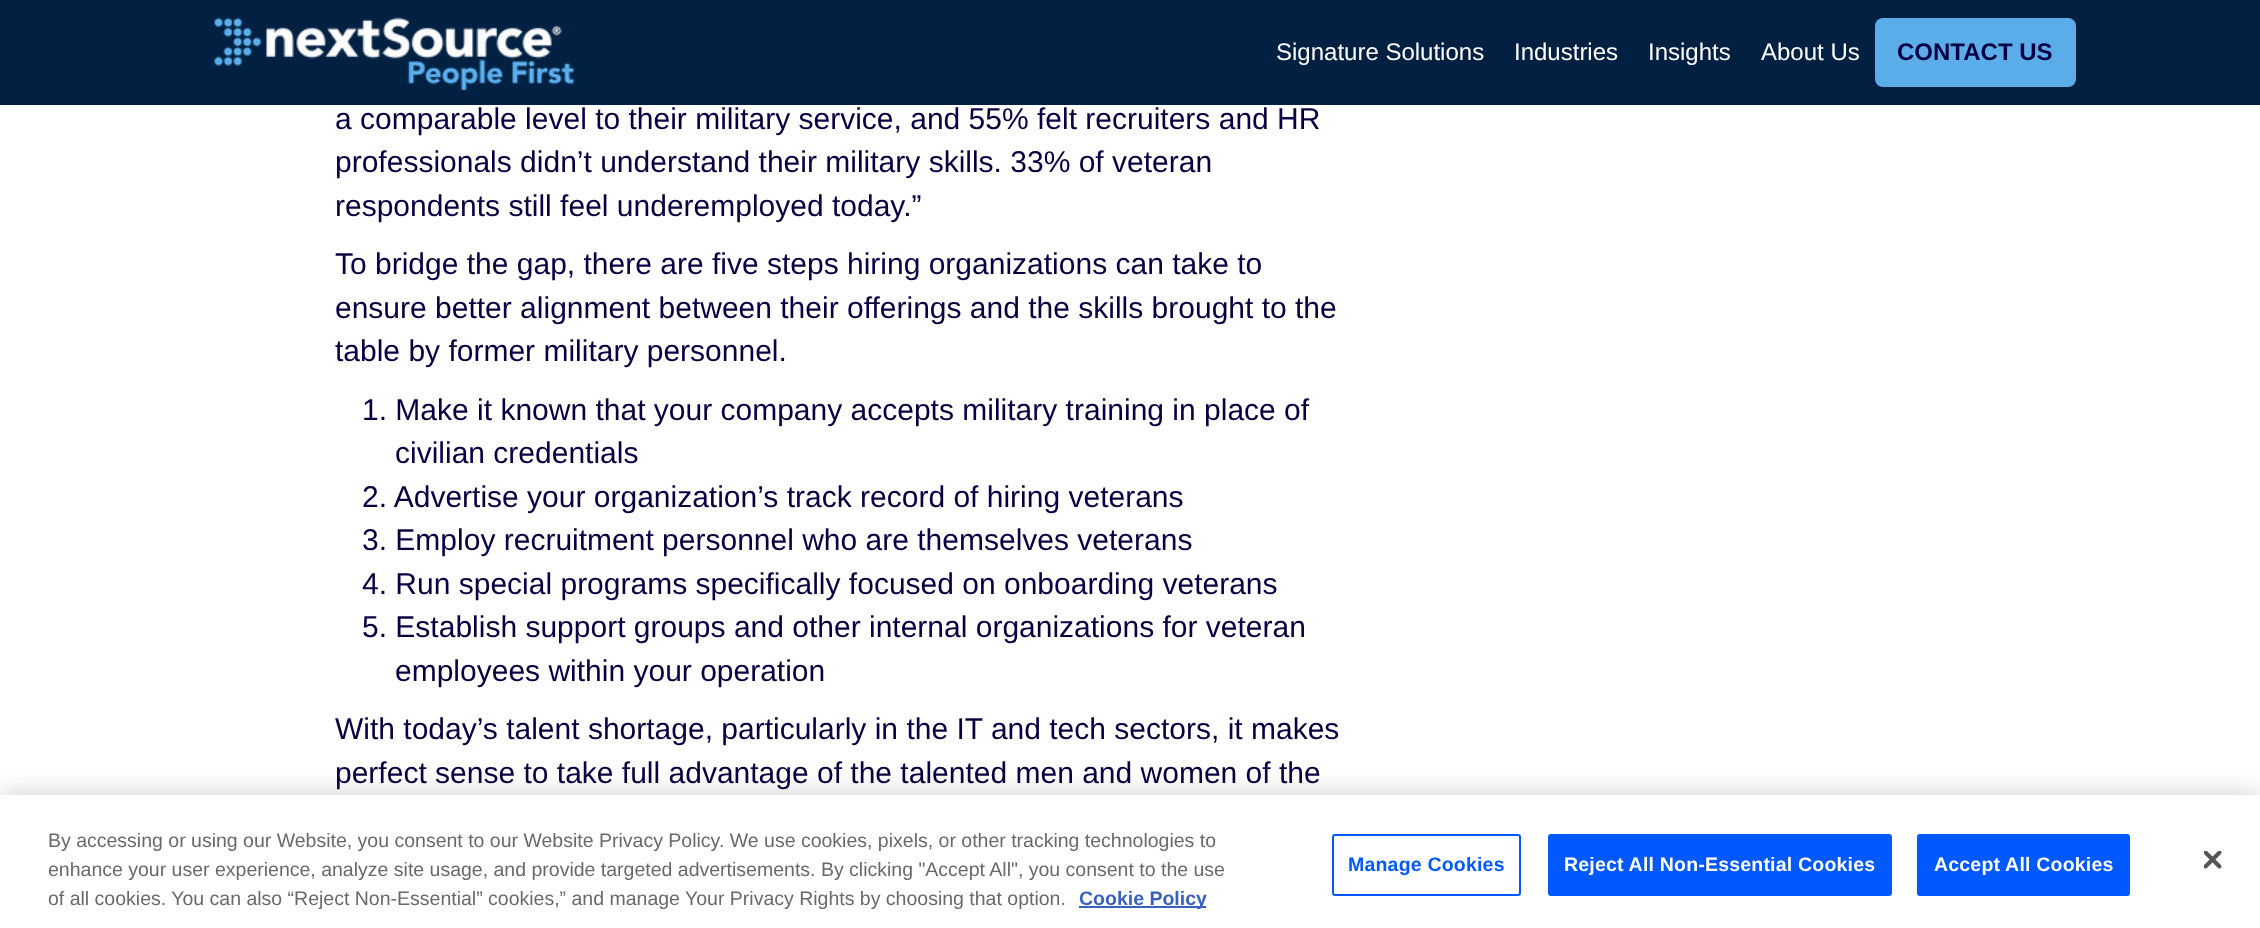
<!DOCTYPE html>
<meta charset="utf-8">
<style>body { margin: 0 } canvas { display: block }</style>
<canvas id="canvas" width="2260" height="928"></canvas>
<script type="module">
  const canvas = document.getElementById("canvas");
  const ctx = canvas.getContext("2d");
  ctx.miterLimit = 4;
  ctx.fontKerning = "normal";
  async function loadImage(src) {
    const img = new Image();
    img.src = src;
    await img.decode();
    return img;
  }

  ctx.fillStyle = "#ffffff";
  ctx.fillRect(0, 0, 2260, 928);
  ctx.fillStyle = "#022142";
  ctx.fillRect(0, 0, 2260, 105);
  ctx.drawImage(await loadImage("img1.png"), 214, 17, 361, 73);
  ctx.font = "24px Liberation Sans";
  ctx.fillStyle = "#ffffff";
  ctx.fillText("Signature Solutions", 1276, 60);
  ctx.fillText("Industries", 1514, 60);
  ctx.fillText("Insights", 1648, 60);
  ctx.fillText("About Us", 1761, 60);
  ctx.fillStyle = "#5badea";
  ctx.beginPath();
  ctx.roundRect(1875, 18, 201, 69, 8);
  ctx.fill();
  ctx.font = "bold 24px Liberation Sans";
  ctx.fillStyle = "#070042";
  ctx.fillText("CONTACT US", 1897, 60);
  ctx.font = "30px Liberation Sans";
  ctx.fillText("a comparable level to their military service, and 55% felt recruiters and HR", 335, 129);
  ctx.fillText("professionals didn’t understand their military skills. 33% of veteran", 335, 172);
  ctx.fillText("respondents still feel underemployed today.”", 335, 216);
  ctx.fillText("To bridge the gap, there are five steps hiring organizations can take to", 335, 274);
  ctx.fillText("ensure better alignment between their offerings and the skills brought to the", 335, 318);
  ctx.fillText("table by former military personnel.", 335, 361);
  ctx.fillText("1. Make it known that your company accepts military training in place of", 362, 420);
  ctx.fillText("civilian credentials", 395, 463);
  ctx.fillText("2. Advertise your organization’s track record of hiring veterans", 362, 507);
  ctx.fillText("3. Employ recruitment personnel who are themselves veterans", 362, 550);
  ctx.fillText("4. Run special programs specifically focused on onboarding veterans", 362, 594);
  ctx.fillText("5. Establish support groups and other internal organizations for veteran", 362, 637);
  ctx.fillText("employees within your operation", 395, 681);
  ctx.fillText("With today’s talent shortage, particularly in the IT and tech sectors, it makes", 335, 739);
  ctx.fillText("perfect sense to take full advantage of the talented men and women of the", 335, 783);
  ctx.fillStyle = "rgba(0, 0, 0, 0.2)";
  ctx.filter = "blur(13.5px)";
  ctx.beginPath();
  ctx.rect(0, 795, 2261, 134);
  ctx.fill();
  ctx.filter = "none";
  ctx.fillStyle = "#ffffff";
  ctx.fillRect(0, 795, 2260, 133);
  ctx.font = "19.5px Liberation Sans";
  ctx.fillStyle = "#696969";
  ctx.fillText("By accessing or using our Website, you consent to our Website Privacy Policy. We use cookies, pixels, or other tracking technologies to", 48, 847);
  ctx.fillText("enhance your user experience, analyze site usage, and provide targeted advertisements. By clicking \"Accept All\", you consent to the use", 48, 876);
  ctx.fillText("of all cookies. You can also “Reject Non-Essential” cookies,” and manage Your Privacy Rights by choosing that option.", 48, 905);
  ctx.fillStyle = "#3860be";
  ctx.fillRect(1079, 906, 127, 2);
  ctx.font = "bold 19.5px Liberation Sans";
  ctx.fillText("Cookie Policy", 1079, 905);
  ctx.beginPath();
  ctx.roundRect(1333, 835, 187, 60, 2);
  ctx.strokeStyle = "#0059ff";
  ctx.lineWidth = 2;
  ctx.stroke();
  ctx.letterSpacing = "0.2px";
  ctx.fillStyle = "#0059ff";
  ctx.fillText("Manage Cookies", 1348, 871);
  ctx.beginPath();
  ctx.roundRect(1549, 835, 342, 60, 2);
  ctx.fill();
  ctx.stroke();
  ctx.fillStyle = "#ffffff";
  ctx.fillText("Reject All Non-Essential Cookies", 1564, 871);
  ctx.fillStyle = "#0059ff";
  ctx.beginPath();
  ctx.roundRect(1918, 835, 211, 60, 2);
  ctx.fill();
  ctx.stroke();
  ctx.fillStyle = "#ffffff";
  ctx.fillText("Accept All Cookies", 1934, 871);
  ctx.drawImage(await loadImage("img2.png"), 2204, 851, 18, 18);
</script>
